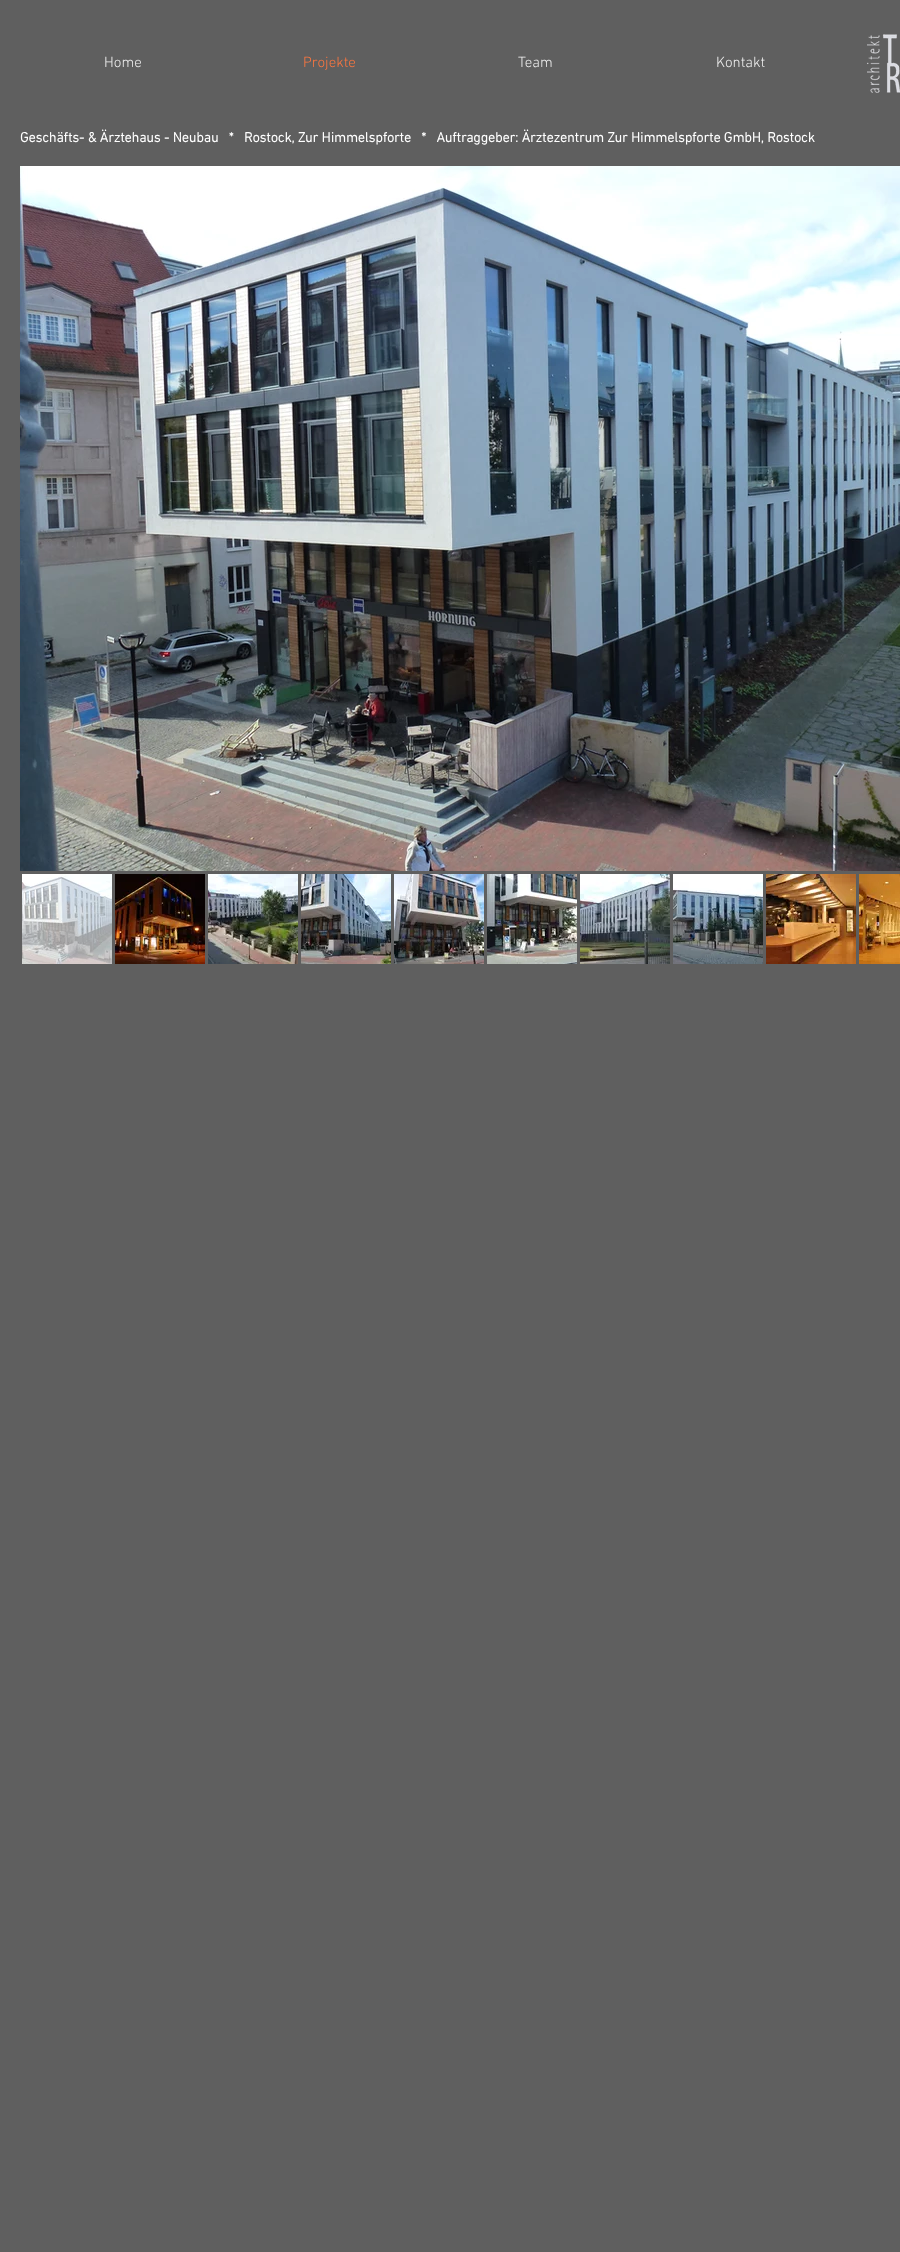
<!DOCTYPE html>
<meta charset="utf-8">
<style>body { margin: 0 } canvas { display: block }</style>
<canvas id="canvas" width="900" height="2252"></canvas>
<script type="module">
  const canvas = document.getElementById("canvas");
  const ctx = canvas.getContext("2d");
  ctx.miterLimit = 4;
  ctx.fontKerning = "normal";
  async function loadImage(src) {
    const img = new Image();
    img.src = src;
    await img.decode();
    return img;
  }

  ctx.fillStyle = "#5f5f5f";
  ctx.fillRect(0, 0, 900, 2252);
  ctx.font = "300 15px 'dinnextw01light'";
  ctx.fillStyle = "#eeeeee";
  ctx.fillText("Home", 104, 67);
  ctx.fillStyle = "#fd763f";
  ctx.fillText("Projekte", 303, 67);
  ctx.fillStyle = "#eeeeee";
  ctx.fillText("Team", 518, 67);
  ctx.fillText("Kontakt", 716, 67);
  ctx.drawImage(await loadImage("img1.png"), 867, 34, 33, 59);
  ctx.font = "bold 14px 'dinnextw01light'";
  ctx.fillStyle = "#ffffff";
  ctx.fillText("Geschäfts- & Ärztehaus - Neubau   *", 20, 142);
  ctx.fillText("Rostock, Zur Himmelspforte   *   Auftraggeber: Ärztezentrum Zur Himmelspforte GmbH, Rostock", 244, 142);
  ctx.drawImage(await loadImage("img2.png"), 20, 166, 880, 705);
  ctx.drawImage(await loadImage("img3.png"), 22, 874, 90, 90);
  ctx.drawImage(await loadImage("img4.png"), 115, 874, 90, 90);
  ctx.drawImage(await loadImage("img5.png"), 208, 874, 90, 90);
  ctx.drawImage(await loadImage("img6.png"), 301, 874, 90, 90);
  ctx.drawImage(await loadImage("img7.png"), 394, 874, 90, 90);
  ctx.drawImage(await loadImage("img8.png"), 487, 874, 90, 90);
  ctx.drawImage(await loadImage("img9.png"), 580, 874, 90, 90);
  ctx.fillRect(673, 874, 90, 8);
  ctx.drawImage(await loadImage("img10.png"), 673, 882, 90, 82);
  ctx.drawImage(await loadImage("img11.png"), 766, 874, 90, 90);
  ctx.drawImage(await loadImage("img12.png"), 859, 874, 41, 90);
</script>
